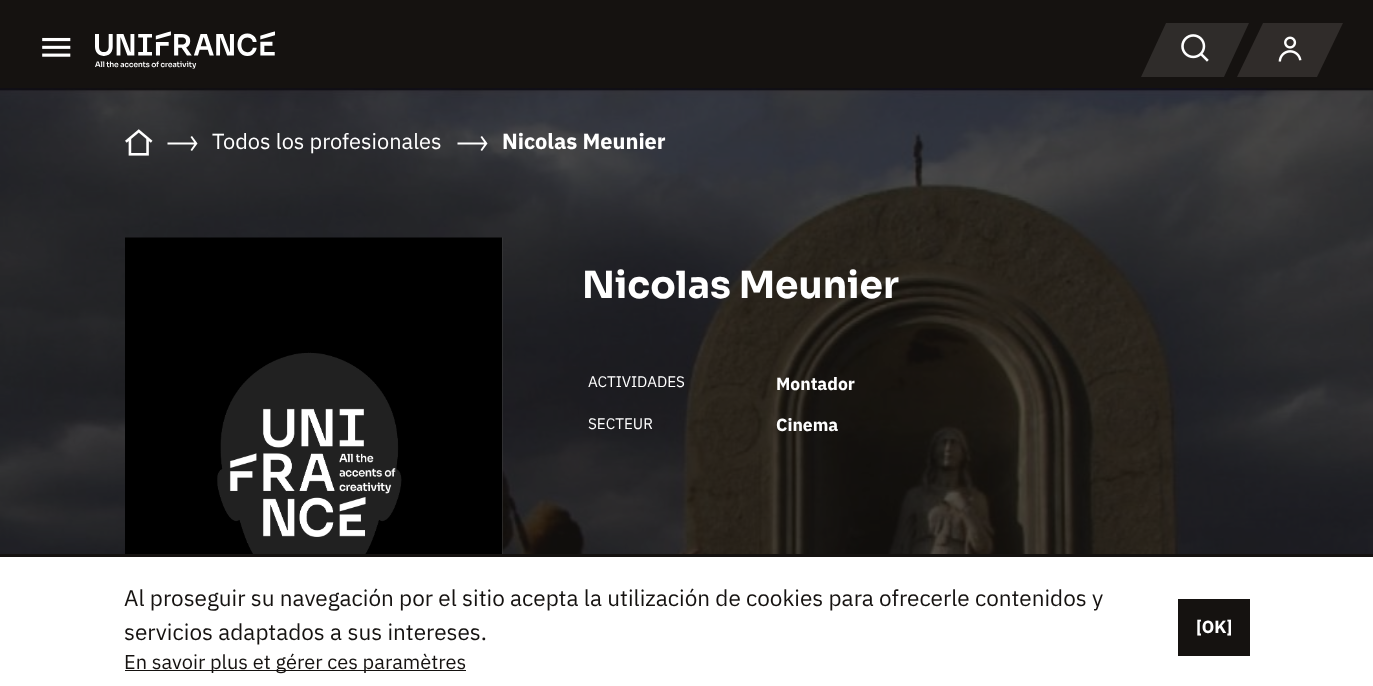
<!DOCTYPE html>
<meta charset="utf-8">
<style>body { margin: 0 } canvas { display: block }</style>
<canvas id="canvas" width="1373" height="686"></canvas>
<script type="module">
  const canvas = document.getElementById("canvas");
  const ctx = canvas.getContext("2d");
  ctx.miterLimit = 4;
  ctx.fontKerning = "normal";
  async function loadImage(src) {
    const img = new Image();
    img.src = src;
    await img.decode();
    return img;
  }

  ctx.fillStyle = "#ffffff";
  ctx.fillRect(0, 0, 1373, 686);
  ctx.fillStyle = "#151210";
  ctx.fillRect(0, 0, 1373, 88);
  ctx.drawImage(await loadImage("img1.png"), 42, 37, 29, 20);
  ctx.drawImage(await loadImage("img2.png"), 95, 31, 180, 38);
  ctx.fillStyle = "#302c2a";
  ctx.beginPath();
  ctx.moveTo(1263, 23);
  ctx.lineTo(1343, 23);
  ctx.lineTo(1317, 77);
  ctx.lineTo(1237, 77);
  ctx.closePath();
  ctx.fill();
  ctx.fillStyle = "#2f2c2a";
  ctx.beginPath();
  ctx.moveTo(1166, 23);
  ctx.lineTo(1249, 23);
  ctx.lineTo(1224, 77);
  ctx.lineTo(1141, 77);
  ctx.closePath();
  ctx.fill();
  ctx.drawImage(await loadImage("img3.png"), 1181, 34, 28, 28);
  ctx.drawImage(await loadImage("img4.png"), 1278, 36, 24, 26);
  ctx.drawImage(await loadImage("img5.png"), 0, 88, 1373, 466);
  ctx.drawImage(await loadImage("img6.png"), 125, 129, 28, 27);
  ctx.fillStyle = "#ffffff";
  ctx.beginPath();
  ctx.moveTo(167.5, 142.5);
  ctx.lineTo(167.5, 144.5);
  ctx.lineTo(196.5, 144.5);
  ctx.lineTo(196.5, 142.5);
  ctx.closePath();
  ctx.moveTo(192, 136);
  ctx.lineTo(190.5, 137);
  ctx.lineTo(195, 143.5);
  ctx.lineTo(190.5, 150);
  ctx.lineTo(192, 151);
  ctx.lineTo(197.5, 143.5);
  ctx.closePath();
  ctx.fill();
  ctx.font = "21.75px IBM Plex Sans";
  ctx.fillText("Todos los profesionales", 212, 149);
  ctx.beginPath();
  ctx.moveTo(457.5, 142.5);
  ctx.lineTo(457.5, 144.5);
  ctx.lineTo(486.5, 144.5);
  ctx.lineTo(486.5, 142.5);
  ctx.closePath();
  ctx.moveTo(482, 136);
  ctx.lineTo(480.5, 137);
  ctx.lineTo(485, 143.5);
  ctx.lineTo(480.5, 150);
  ctx.lineTo(482, 151);
  ctx.lineTo(487.5, 143.5);
  ctx.closePath();
  ctx.fill();
  ctx.font = "bold 21.75px IBM Plex Sans";
  ctx.fillText("Nicolas Meunier", 502, 149);
  ctx.drawImage(await loadImage("img7.png"), 125, 237, 378, 317);
  ctx.font = "bold 37.5px Sora";
  ctx.fillText("Nicolas Meunier", 582, 298);
  ctx.font = "15.25px IBM Plex Sans";
  ctx.fillText("ACTIVIDADES", 588, 387);
  ctx.font = "bold 17.5px 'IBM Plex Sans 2'";
  ctx.fillText("Montador", 776, 390);
  ctx.font = "15.25px IBM Plex Sans";
  ctx.fillText("SECTEUR", 588, 429);
  ctx.font = "bold 17.5px 'IBM Plex Sans 2'";
  ctx.fillText("Cinema", 776, 431);
  ctx.fillStyle = "#151210";
  ctx.fillRect(0, 554, 1373, 3);
  ctx.font = "22.5px IBM Plex Sans";
  ctx.fillText("Al proseguir su navegación por el sitio acepta la utilización de cookies para ofrecerle contenidos y", 124, 606);
  ctx.fillText("servicios adaptados a sus intereses.", 124, 640);
  ctx.fillRect(125, 670, 341, 1);
  ctx.font = "20px IBM Plex Sans";
  ctx.fillText("En savoir plus et gérer ces paramètres", 124, 669);
  ctx.fillRect(1178, 599, 72, 57);
  ctx.font = "bold 17.5px IBM Plex Sans";
  ctx.fillStyle = "#ffffff";
  ctx.fillText("[OK]", 1196, 633);
</script>
